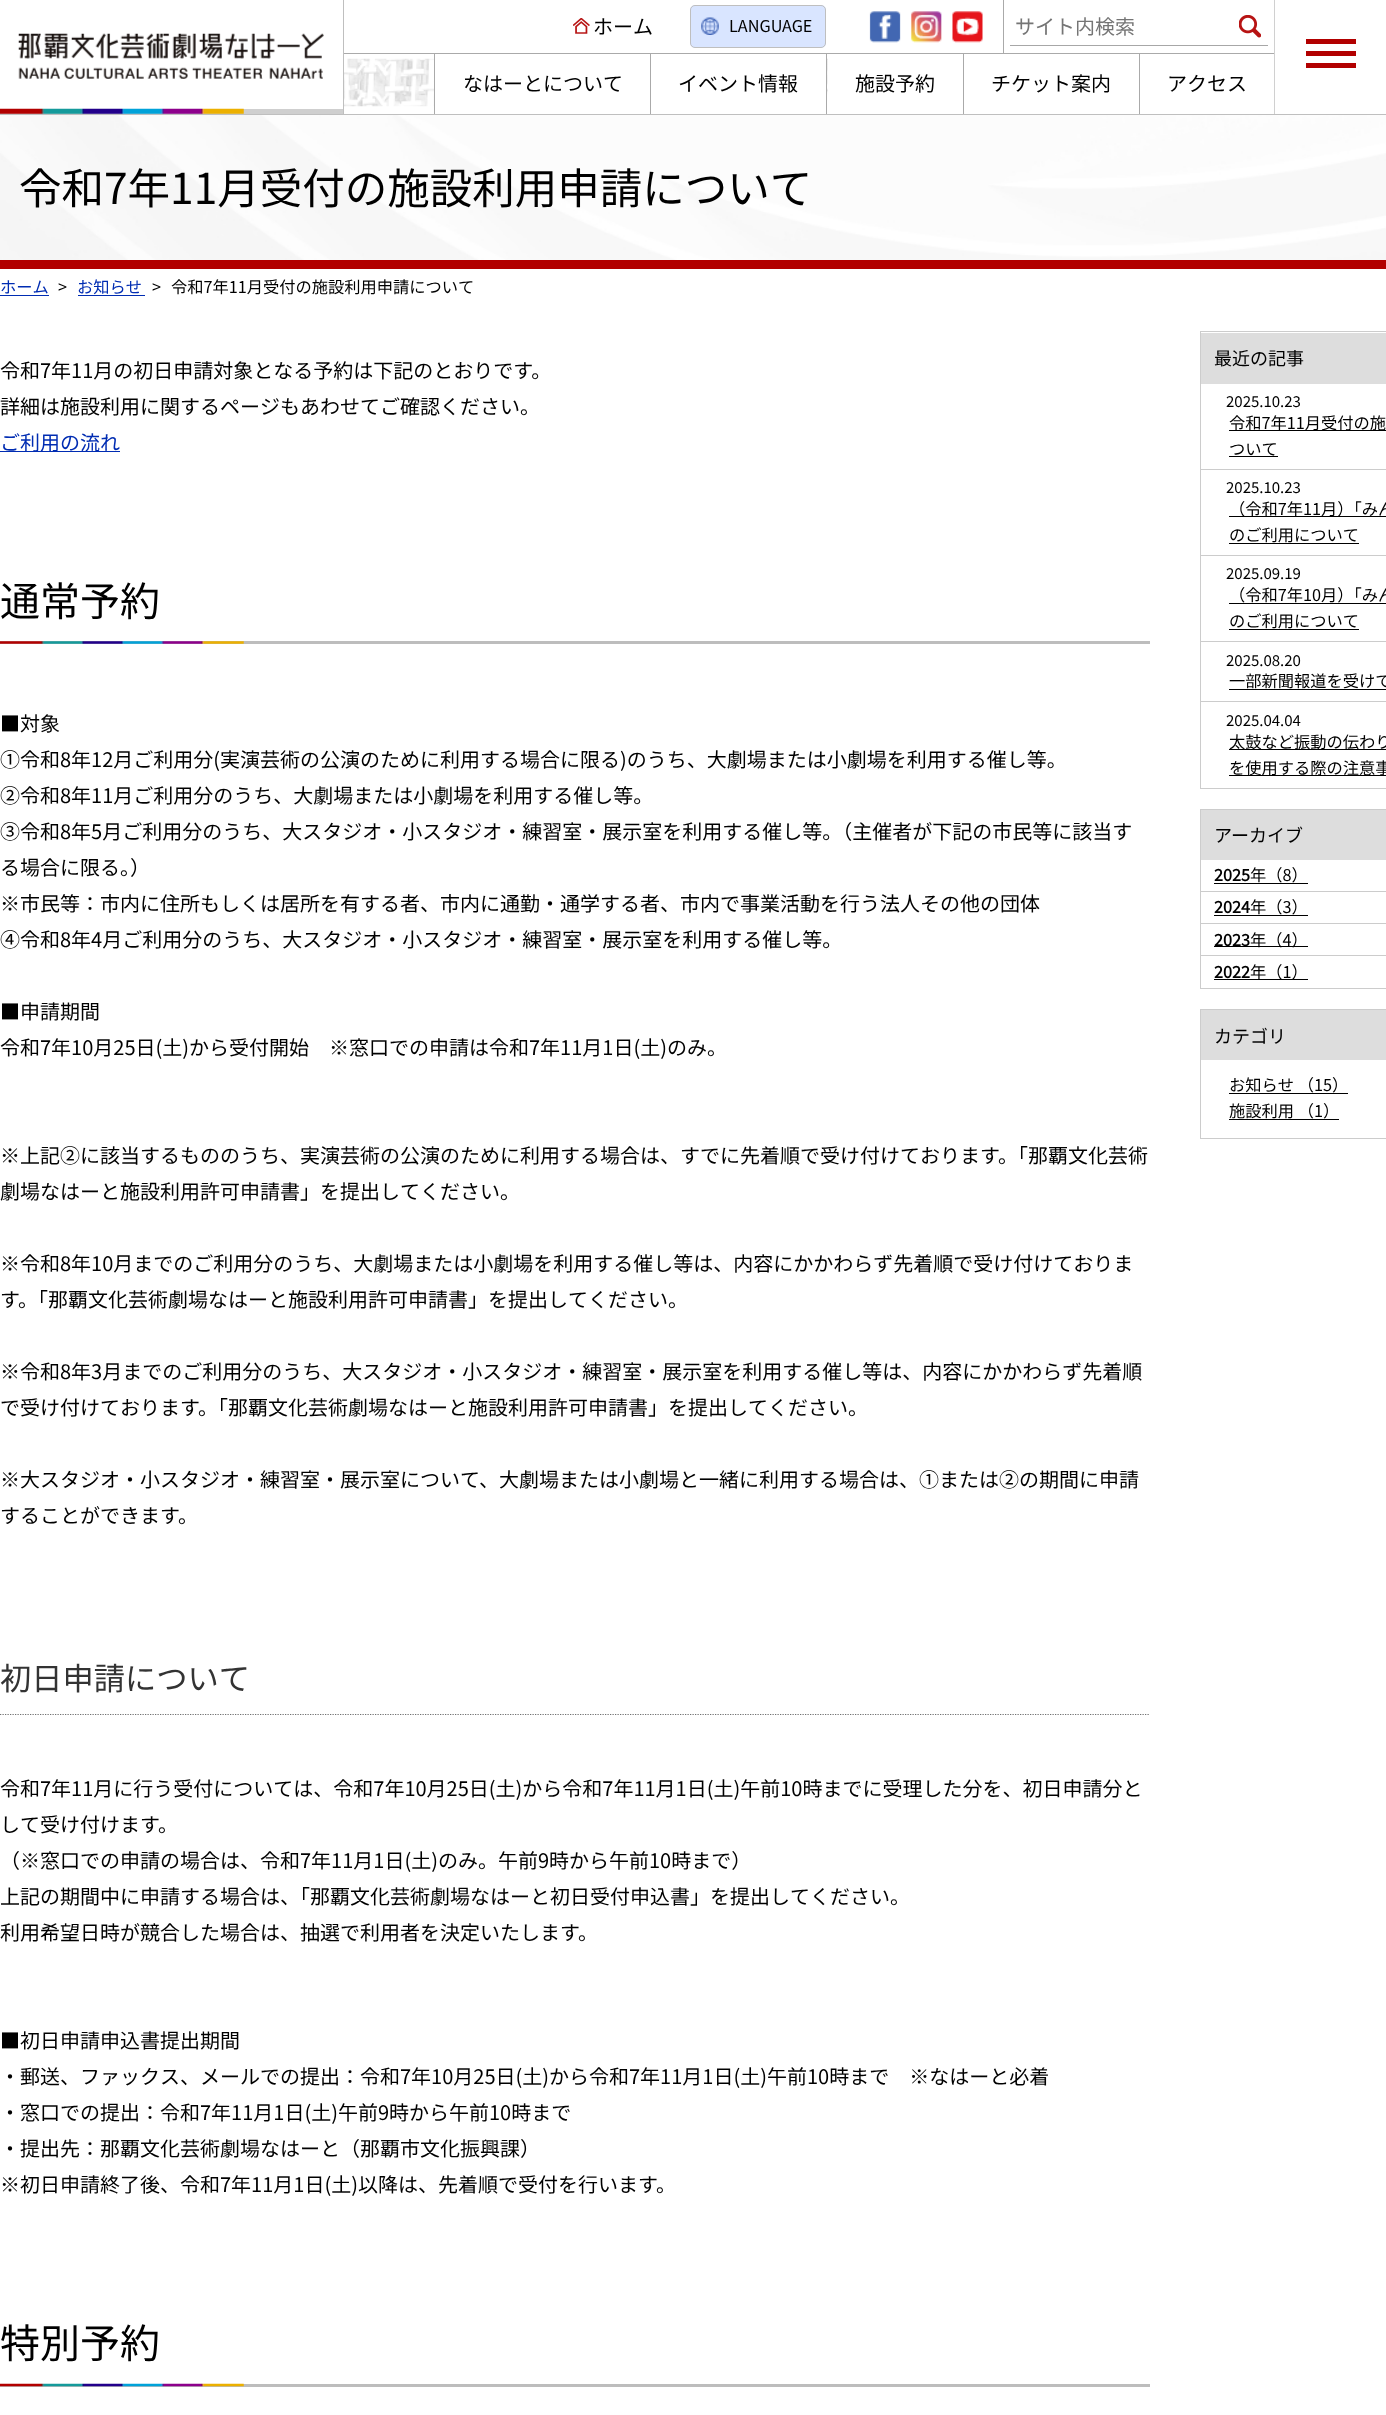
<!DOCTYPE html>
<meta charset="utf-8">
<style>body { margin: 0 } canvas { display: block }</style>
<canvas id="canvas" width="1386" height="2415"></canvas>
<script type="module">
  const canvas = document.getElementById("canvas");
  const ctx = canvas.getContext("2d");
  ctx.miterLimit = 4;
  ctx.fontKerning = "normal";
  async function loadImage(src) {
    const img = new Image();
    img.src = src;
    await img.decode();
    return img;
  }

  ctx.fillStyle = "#ffffff";
  ctx.fillRect(0, 0, 1386, 2415);
  ctx.fillStyle = "#bfbfbf";
  ctx.fillRect(0, 114, 1386, 1);
  ctx.fillRect(343, 0, 1, 114);
  ctx.fillStyle = "#cfcfcf";
  ctx.fillRect(0, 109, 343, 5);
  ctx.drawImage(await loadImage("img1.png"), 18, 33, 306, 46);
  ctx.drawImage(await loadImage("img2.png"), 0, 108, 244, 6);
  ctx.fillStyle = "#aaaaaa";
  ctx.fillRect(344, 53, 930, 1);
  ctx.drawImage(await loadImage("img3.png"), 573, 18, 17, 16);
  ctx.font = "20px Noto Sans JP";
  ctx.fillStyle = "#000000";
  ctx.fillText("ホーム", 593, 34);
  ctx.fillStyle = "#d9e5ff";
  ctx.beginPath();
  ctx.roundRect(690, 5, 136, 43, 5);
  ctx.fill();
  ctx.drawImage(await loadImage("img4.png"), 701, 17, 18, 18);
  ctx.beginPath();
  ctx.roundRect(690.5, 5.5, 135, 42, 4.5);
  ctx.strokeStyle = "#bfbfbf";
  ctx.stroke();
  ctx.font = "16.25px Noto Sans JP";
  ctx.fillStyle = "#000000";
  ctx.fillText("LANGUAGE", 729, 32);
  ctx.drawImage(await loadImage("img5.png"), 869, 11, 32, 32);
  ctx.drawImage(await loadImage("img6.png"), 911, 11, 31, 32);
  ctx.drawImage(await loadImage("img7.png"), 952, 11, 31, 32);
  ctx.fillStyle = "#aaaaaa";
  ctx.fillRect(1003, 0, 1, 53);
  ctx.fillStyle = "#a7a7a7";
  ctx.fillRect(1010, 45, 258, 1);
  ctx.font = "20px Noto Sans JP";
  ctx.fillStyle = "#757575";
  ctx.fillText("サイト内検索", 1015, 34);
  ctx.drawImage(await loadImage("img8.png"), 1239, 15, 22, 23);
  ctx.drawImage(await loadImage("img9.png"), 344, 58, 484, 49);
  ctx.fillStyle = "#aaaaaa";
  ctx.fillRect(434, 54, 1, 60);
  ctx.fillStyle = "#ffffff";
  ctx.fillRect(435, 58, 215, 49);
  ctx.fillStyle = "#000000";
  ctx.fillText("なはーとについて", 463, 91);
  ctx.fillStyle = "#aaaaaa";
  ctx.fillRect(650, 54, 1, 60);
  ctx.fillStyle = "#ffffff";
  ctx.fillRect(651, 58, 175, 49);
  ctx.fillStyle = "#000000";
  ctx.fillText("イベント情報", 678, 91);
  ctx.fillStyle = "#aaaaaa";
  ctx.fillRect(826, 54, 1, 60);
  ctx.fillStyle = "#000000";
  ctx.fillText("施設予約", 855, 91);
  ctx.fillStyle = "#aaaaaa";
  ctx.fillRect(963, 54, 1, 60);
  ctx.fillStyle = "#000000";
  ctx.fillText("チケット案内", 991, 91);
  ctx.fillStyle = "#aaaaaa";
  ctx.fillRect(1139, 54, 1, 60);
  ctx.fillStyle = "#000000";
  ctx.fillText("アクセス", 1167, 91);
  ctx.fillStyle = "#d0d0d0";
  ctx.fillRect(1274, 0, 1, 114);
  ctx.fillStyle = "#b20000";
  ctx.fillRect(1306, 51, 50, 5);
  ctx.fillRect(1306, 39, 50, 5);
  ctx.fillRect(1306, 63, 50, 5);
  ctx.drawImage(await loadImage("img10.png"), 0, 115, 1386, 145);
  ctx.fillRect(0, 260, 1386, 9);
  ctx.font = "42.5px Noto Sans JP";
  ctx.fillStyle = "#000000";
  ctx.fillText("令和7年11月受付の施設利用申請について", 19, 204);
  ctx.font = "16.25px Noto Sans JP";
  ctx.fillStyle = "#002cb2";
  ctx.fillText("ホーム", 0, 293);
  ctx.fillRect(0, 295, 49, 1);
  ctx.fillStyle = "#000000";
  ctx.fillText(">", 58, 293);
  ctx.fillStyle = "#002cb2";
  ctx.fillText("お知らせ", 77, 293);
  ctx.fillRect(78, 295, 67, 1);
  ctx.fillStyle = "#000000";
  ctx.fillText(">", 152, 293);
  ctx.fillText("令和7年11月受付の施設利用申請について", 171, 293);
  ctx.font = "20px Noto Sans JP";
  ctx.fillText("令和7年11月の初日申請対象となる予約は下記のとおりです。", 0, 378);
  ctx.fillText("詳細は施設利用に関するページもあわせてご確認ください。", 0, 414);
  ctx.fillStyle = "#002cb2";
  ctx.fillRect(0, 451, 120, 1);
  ctx.fillText("ご利用の流れ", 0, 450);
  ctx.fillStyle = "#bdbdbd";
  ctx.fillRect(0, 641, 1150, 3);
  ctx.font = "40px Noto Sans JP";
  ctx.fillStyle = "#000000";
  ctx.fillText("通常予約", 0, 616);
  ctx.drawImage(await loadImage("img11.png"), 0, 641, 244, 3);
  ctx.font = "20px Noto Sans JP";
  ctx.fillText("■対象", 0, 731);
  ctx.fillText("①令和8年12月ご利用分(実演芸術の公演のために利用する場合に限る)のうち、大劇場または小劇場を利用する催し等。", 0, 767);
  ctx.fillText("②令和8年11月ご利用分のうち、大劇場または小劇場を利用する催し等。", 0, 803);
  ctx.fillText("③令和8年5月ご利用分のうち、大スタジオ・小スタジオ・練習室・展示室を利用する催し等。（主催者が下記の市民等に該当す", 0, 839);
  ctx.fillText("る場合に限る。）", 0, 875);
  ctx.fillText("※市民等：市内に住所もしくは居所を有する者、市内に通勤・通学する者、市内で事業活動を行う法人その他の団体", 0, 911);
  ctx.fillText("④令和8年4月ご利用分のうち、大スタジオ・小スタジオ・練習室・展示室を利用する催し等。", 0, 947);
  ctx.fillText("■申請期間", 0, 1019);
  ctx.fillText("令和7年10月25日(土)から受付開始　※窓口での申請は令和7年11月1日(土)のみ。", 0, 1055);
  ctx.fillText("※上記②に該当するもののうち、実演芸術の公演のために利用する場合は、すでに先着順で受け付けております。「那覇文化芸術", 0, 1163);
  ctx.fillText("劇場なはーと施設利用許可申請書」を提出してください。", 0, 1199);
  ctx.fillText("※令和8年10月までのご利用分のうち、大劇場または小劇場を利用する催し等は、内容にかかわらず先着順で受け付けておりま", 0, 1271);
  ctx.fillText("す。「那覇文化芸術劇場なはーと施設利用許可申請書」を提出してください。", 0, 1307);
  ctx.fillText("※令和8年3月までのご利用分のうち、大スタジオ・小スタジオ・練習室・展示室を利用する催し等は、内容にかかわらず先着順", 0, 1379);
  ctx.fillText("で受け付けております。「那覇文化芸術劇場なはーと施設利用許可申請書」を提出してください。", 0, 1415);
  ctx.fillText("※大スタジオ・小スタジオ・練習室・展示室について、大劇場または小劇場と一緒に利用する場合は、①または②の期間に申請", 0, 1487);
  ctx.fillText("することができます。", 0, 1523);
  ctx.beginPath();
  ctx.moveTo(0, 1714.5);
  ctx.lineTo(1150, 1714.5);
  ctx.strokeStyle = "#707070";
  ctx.lineWidth = 1.2;
  ctx.setLineDash([1.25, 1.25]);
  ctx.stroke();
  ctx.font = "31.25px Noto Sans JP";
  ctx.fillStyle = "#333333";
  ctx.fillText("初日申請について", 0, 1690);
  ctx.font = "20px Noto Sans JP";
  ctx.fillStyle = "#000000";
  ctx.fillText("令和7年11月に行う受付については、令和7年10月25日(土)から令和7年11月1日(土)午前10時までに受理した分を、初日申請分と", 0, 1796);
  ctx.fillText("して受け付けます。", 0, 1832);
  ctx.fillText("（※窓口での申請の場合は、令和7年11月1日(土)のみ。午前9時から午前10時まで）", 0, 1868);
  ctx.fillText("上記の期間中に申請する場合は、「那覇文化芸術劇場なはーと初日受付申込書」を提出してください。", 0, 1904);
  ctx.fillText("利用希望日時が競合した場合は、抽選で利用者を決定いたします。", 0, 1940);
  ctx.fillText("■初日申請申込書提出期間", 0, 2048);
  ctx.fillText("・郵送、ファックス、メールでの提出：令和7年10月25日(土)から令和7年11月1日(土)午前10時まで　※なはーと必着", 0, 2084);
  ctx.fillText("・窓口での提出：令和7年11月1日(土)午前9時から午前10時まで", 0, 2120);
  ctx.fillText("・提出先：那覇文化芸術劇場なはーと（那覇市文化振興課）", 0, 2156);
  ctx.fillText("※初日申請終了後、令和7年11月1日(土)以降は、先着順で受付を行います。", 0, 2192);
  ctx.fillStyle = "#bdbdbd";
  ctx.fillRect(0, 2384, 1150, 3);
  ctx.font = "40px Noto Sans JP";
  ctx.fillStyle = "#000000";
  ctx.fillText("特別予約", 0, 2358);
  ctx.drawImage(await loadImage("img12.png"), 0, 2383, 244, 4);
  ctx.strokeStyle = "#cccccc";
  ctx.lineWidth = 1;
  ctx.setLineDash([]);
  ctx.strokeRect(1200.5, 331.5, 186, 457);
  ctx.fillStyle = "#dddddd";
  ctx.fillRect(1201, 333, 185, 51);
  ctx.font = "18px Noto Sans JP";
  ctx.fillStyle = "#000000";
  ctx.fillText("最近の記事", 1214, 365);
  ctx.font = "15px Noto Sans JP";
  ctx.fillText("2025.10.23", 1226, 407);
  ctx.fillRect(1229, 430, 157, 1);
  ctx.font = "16.25px Noto Sans JP";
  ctx.fillText("令和7年11月受付の施", 1229, 429);
  ctx.fillText("ついて", 1229, 455);
  ctx.fillRect(1229, 456, 49, 1);
  ctx.fillStyle = "#cccccc";
  ctx.fillRect(1201, 469, 185, 1);
  ctx.font = "15px Noto Sans JP";
  ctx.fillStyle = "#000000";
  ctx.fillText("2025.10.23", 1226, 493);
  ctx.fillRect(1229, 516, 157, 1);
  ctx.font = "16.25px Noto Sans JP";
  ctx.fillText("（令和7年11月）「みん", 1229, 515);
  ctx.fillText("のご利用について", 1229, 541);
  ctx.fillRect(1229, 543, 130, 1);
  ctx.fillStyle = "#cccccc";
  ctx.fillRect(1201, 555, 185, 1);
  ctx.font = "15px Noto Sans JP";
  ctx.fillStyle = "#000000";
  ctx.fillText("2025.09.19", 1226, 579);
  ctx.font = "16.25px Noto Sans JP";
  ctx.fillText("（令和7年10月）「みん", 1229, 601);
  ctx.fillRect(1229, 603, 157, 1);
  ctx.fillText("のご利用について", 1229, 627);
  ctx.fillRect(1229, 629, 130, 1);
  ctx.fillStyle = "#cccccc";
  ctx.fillRect(1201, 641, 185, 1);
  ctx.font = "15px Noto Sans JP";
  ctx.fillStyle = "#000000";
  ctx.fillText("2025.08.20", 1226, 666);
  ctx.font = "16.25px Noto Sans JP";
  ctx.fillText("一部新聞報道を受けて", 1229, 687);
  ctx.fillRect(1229, 689, 157, 1);
  ctx.fillStyle = "#cccccc";
  ctx.fillRect(1201, 701, 185, 1);
  ctx.font = "15px Noto Sans JP";
  ctx.fillStyle = "#000000";
  ctx.fillText("2025.04.04", 1226, 726);
  ctx.fillRect(1229, 749, 157, 1);
  ctx.font = "16.25px Noto Sans JP";
  ctx.fillText("太鼓など振動の伝わり", 1229, 748);
  ctx.fillRect(1229, 775, 157, 1);
  ctx.fillText("を使用する際の注意事", 1229, 774);
  ctx.strokeRect(1200.5, 809.5, 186, 179);
  ctx.fillStyle = "#dddddd";
  ctx.fillRect(1201, 810, 185, 50);
  ctx.font = "18px Noto Sans JP";
  ctx.fillStyle = "#000000";
  ctx.fillText("アーカイブ", 1214, 842);
  ctx.font = "bold 16.25px Noto Sans JP";
  ctx.fillText("2025", 1214, 881);
  ctx.fillRect(1214, 883, 94, 1);
  ctx.font = "16.25px Noto Sans JP";
  ctx.fillText("年（8）", 1250, 881);
  ctx.fillStyle = "#cccccc";
  ctx.fillRect(1201, 891, 185, 1);
  ctx.font = "bold 16.25px Noto Sans JP";
  ctx.fillStyle = "#000000";
  ctx.fillText("2024", 1214, 913);
  ctx.fillRect(1214, 915, 94, 1);
  ctx.font = "16.25px Noto Sans JP";
  ctx.fillText("年（3）", 1250, 913);
  ctx.fillStyle = "#cccccc";
  ctx.fillRect(1201, 923, 185, 1);
  ctx.fillStyle = "#000000";
  ctx.fillRect(1214, 946, 94, 1);
  ctx.font = "bold 16.25px Noto Sans JP";
  ctx.fillText("2023", 1214, 946);
  ctx.font = "16.25px Noto Sans JP";
  ctx.fillText("年（4）", 1250, 946);
  ctx.fillStyle = "#cccccc";
  ctx.fillRect(1201, 955, 185, 1);
  ctx.font = "bold 16.25px Noto Sans JP";
  ctx.fillStyle = "#000000";
  ctx.fillText("2022", 1214, 978);
  ctx.fillRect(1214, 979, 94, 1);
  ctx.font = "16.25px Noto Sans JP";
  ctx.fillText("年（1）", 1250, 978);
  ctx.strokeRect(1200.5, 1009.5, 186, 129);
  ctx.fillStyle = "#dddddd";
  ctx.fillRect(1201, 1010, 185, 50);
  ctx.font = "18px Noto Sans JP";
  ctx.fillStyle = "#000000";
  ctx.fillText("カテゴリ", 1214, 1043);
  ctx.font = "16.25px Noto Sans JP";
  ctx.fillText("お知らせ （15）", 1229, 1091);
  ctx.fillRect(1229, 1093, 119, 1);
  ctx.fillText("施設利用 （1）", 1229, 1117);
  ctx.fillRect(1229, 1119, 110, 1);
</script>
